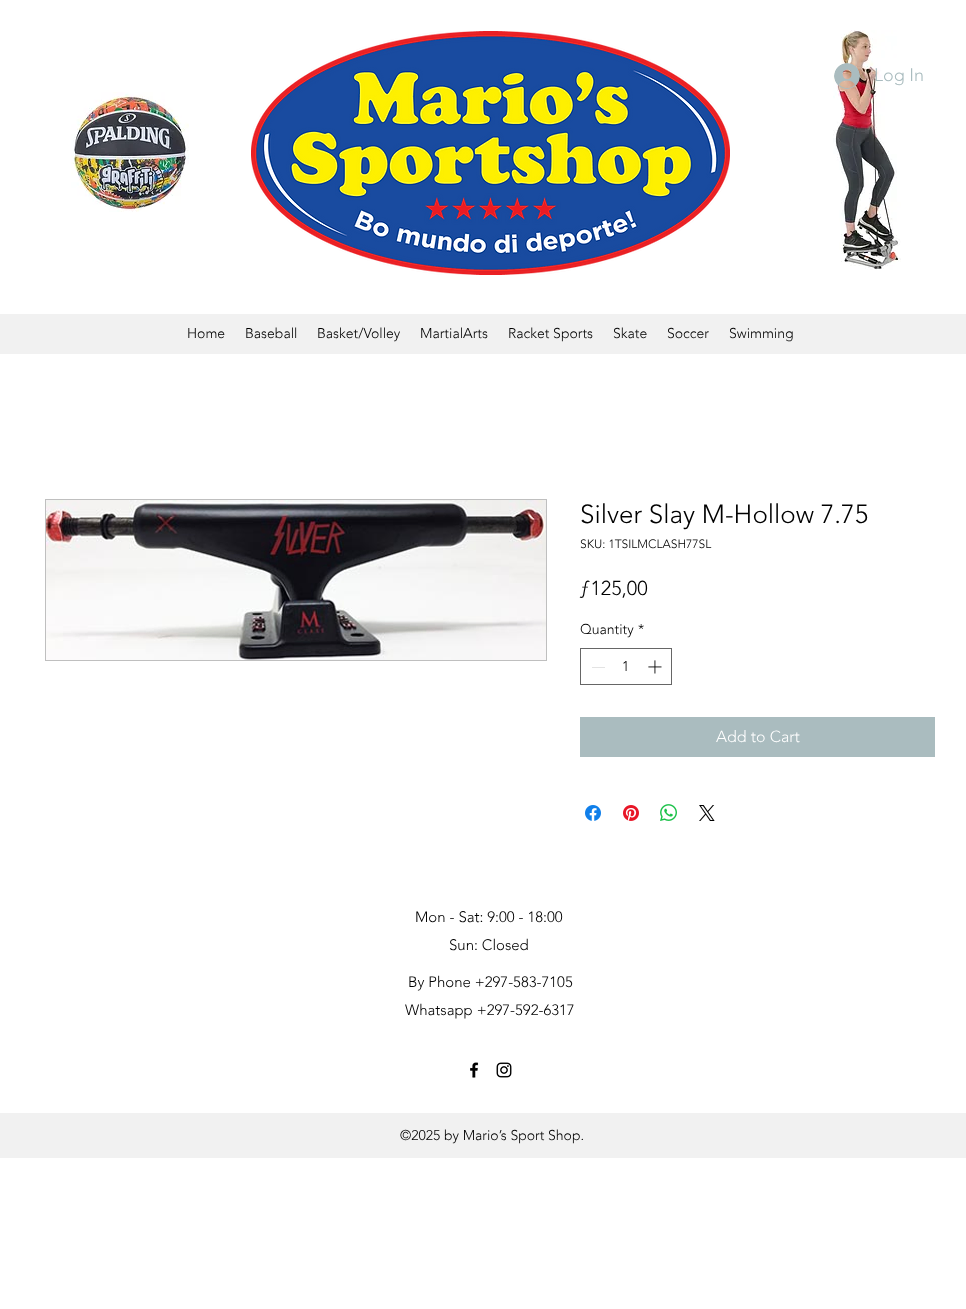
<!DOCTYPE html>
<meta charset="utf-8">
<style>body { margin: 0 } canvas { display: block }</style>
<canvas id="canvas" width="966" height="1309"></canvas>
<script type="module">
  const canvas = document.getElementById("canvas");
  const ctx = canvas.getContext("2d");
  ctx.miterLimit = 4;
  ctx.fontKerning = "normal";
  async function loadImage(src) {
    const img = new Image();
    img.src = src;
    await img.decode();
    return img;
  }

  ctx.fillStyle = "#ffffff";
  ctx.fillRect(0, 0, 966, 1309);
  ctx.drawImage(await loadImage("img1.png"), 71, 92, 118, 120);
  ctx.drawImage(await loadImage("img2.png"), 251, 31, 479, 244);
  ctx.drawImage(await loadImage("img3.png"), 833, 30, 68, 240);
  ctx.drawImage(await loadImage("img4.png"), 834, 63, 26, 26);
  ctx.font = "300 18px 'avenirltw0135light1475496'";
  ctx.fillStyle = "#aabcbf";
  ctx.fillText("Log In", 874, 81);
  ctx.fillStyle = "#f1f1f1";
  ctx.fillRect(0, 314, 966, 40);
  ctx.font = "300 14px 'avenirltw0135light1475496'";
  ctx.fillStyle = "#000000";
  ctx.fillText("Home", 187, 338);
  ctx.fillText("Baseball", 245, 338);
  ctx.fillText("Basket/Volley", 317, 338);
  ctx.fillText("MartialArts", 420, 338);
  ctx.fillText("Racket Sports", 508, 338);
  ctx.fillText("Skate", 613, 338);
  ctx.fillText("Soccer", 667, 338);
  ctx.fillText("Swimming", 729, 338);
  ctx.strokeStyle = "#bfbfbf";
  ctx.strokeRect(45.5, 499.5, 501, 161);
  ctx.drawImage(await loadImage("img5.png"), 46, 500, 500, 160);
  ctx.font = "300 26px 'avenirltw0135light1475496'";
  ctx.fillText("Silver Slay M-Hollow 7.75", 580, 523);
  ctx.font = "300 12px 'avenirltw0135light1475496'";
  ctx.fillText("SKU: 1TSILMCLASH77SL", 580, 548);
  ctx.font = "300 20px 'avenirltw0135light1475496'";
  ctx.fillText("ƒ125,00", 580, 595);
  ctx.font = "300 14px 'avenirltw0135light1475496'";
  ctx.fillText("Quantity", 580, 634);
  ctx.fillText("*", 638, 634);
  ctx.strokeStyle = "#666666";
  ctx.strokeRect(580.5, 648.5, 91, 36);
  ctx.fillStyle = "#e3e3e3";
  ctx.fillRect(592, 667, 13, 1);
  ctx.fillStyle = "#000000";
  ctx.fillText("1", 622, 671);
  ctx.drawImage(await loadImage("img6.png"), 648, 660, 14, 14);
  ctx.fillStyle = "#aabcbf";
  ctx.fillRect(580, 717, 355, 40);
  ctx.font = "300 16px 'avenirltw0135light1475496'";
  ctx.fillStyle = "#ffffff";
  ctx.fillText("Add to Cart", 716, 742);
  ctx.drawImage(await loadImage("img7.png"), 585, 805, 16, 16);
  ctx.drawImage(await loadImage("img8.png"), 623, 805, 16, 16);
  ctx.drawImage(await loadImage("img9.png"), 660, 804, 17, 17);
  ctx.drawImage(await loadImage("img10.png"), 699, 805, 16, 16);
  ctx.font = "300 15px 'avenirltw0135light1475496'";
  ctx.fillStyle = "#000000";
  ctx.fillText("Mon - Sat: 9:00 - 18:00", 415, 922);
  ctx.fillText("Sun: Closed", 449, 950);
  ctx.fillText("By Phone +297-583-7105", 408, 987);
  ctx.fillText("Whatsapp +297-592-6317", 405, 1015);
  ctx.drawImage(await loadImage("img11.png"), 470, 1062, 9, 16);
  ctx.drawImage(await loadImage("img12.png"), 496, 1062, 16, 16);
  ctx.fillStyle = "#f1f1f1";
  ctx.fillRect(0, 1113, 966, 45);
  ctx.font = "300 14px 'avenirltw0135light1475496'";
  ctx.fillStyle = "#000000";
  ctx.fillText("©2025 by Mario’s Sport Shop.", 400, 1140);
</script>
